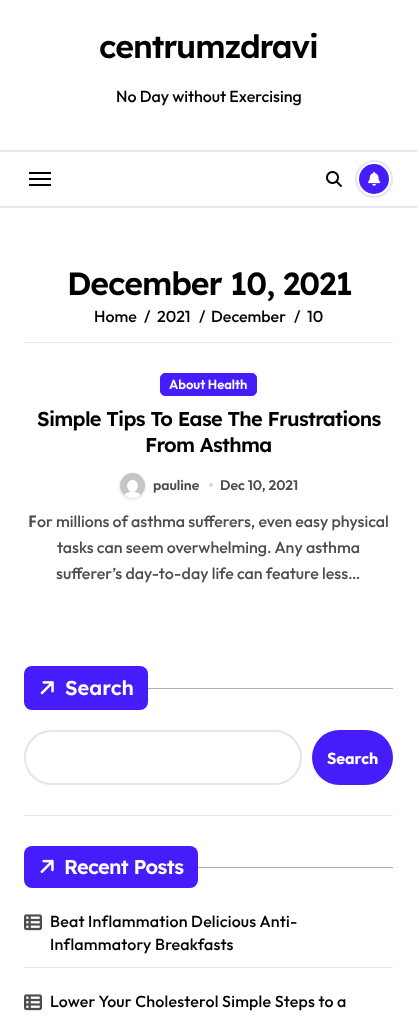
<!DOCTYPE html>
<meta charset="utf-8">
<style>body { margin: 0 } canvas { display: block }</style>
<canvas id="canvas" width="417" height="1017"></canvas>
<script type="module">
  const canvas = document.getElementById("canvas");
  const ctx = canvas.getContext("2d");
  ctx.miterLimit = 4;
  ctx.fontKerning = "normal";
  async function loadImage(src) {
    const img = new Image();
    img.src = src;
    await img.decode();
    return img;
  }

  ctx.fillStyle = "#ffffff";
  ctx.fillRect(0, 0, 417, 1017);
  ctx.letterSpacing = "-1.1px";
  ctx.font = "600 32px Lexend Deca";
  ctx.fillStyle = "#000000";
  ctx.fillText("centrumzdravi", 99, 58);
  ctx.letterSpacing = "0px";
  ctx.font = "500 16px Outfit";
  ctx.fillText("No Day without Exercising", 116, 102);
  ctx.fillStyle = "#e2e8f0";
  ctx.fillRect(0, 150, 417, 2);
  ctx.fillRect(0, 206, 417, 2);
  ctx.fillStyle = "#000000";
  ctx.fillRect(29, 172, 22, 2);
  ctx.fillRect(29, 178, 22, 2);
  ctx.fillRect(29, 184, 22, 2);
  ctx.drawImage(await loadImage("img1.png"), 326, 171, 16, 16);
  ctx.beginPath();
  ctx.arc(374, 179, 18, 0, Math.PI * 2);
  ctx.strokeStyle = "#e2e8f0";
  ctx.lineWidth = 2;
  ctx.stroke();
  ctx.fillStyle = "#461cfb";
  ctx.beginPath();
  ctx.arc(374, 179, 15, 0, Math.PI * 2);
  ctx.fill();
  ctx.drawImage(await loadImage("img2.png"), 368, 171, 13, 15);
  ctx.fillStyle = "#e2e8f0";
  ctx.fillRect(24, 342, 369, 1);
  ctx.letterSpacing = "-1.1px";
  ctx.font = "600 32px Lexend Deca";
  ctx.fillStyle = "#000000";
  ctx.fillText("December 10, 2021", 67, 295);
  ctx.letterSpacing = "0px";
  ctx.font = "500 16px Outfit";
  ctx.fillText("Home", 94, 322);
  ctx.fillText("/", 144, 322);
  ctx.fillText("2021", 157, 322);
  ctx.fillText("/", 199, 322);
  ctx.fillText("December", 211, 322);
  ctx.fillText("/", 294, 322);
  ctx.fillText("10", 307, 322);
  ctx.fillStyle = "#461cfb";
  ctx.beginPath();
  ctx.roundRect(160.5, 373.5, 96, 22, 4.5);
  ctx.fill();
  ctx.strokeStyle = "#461cfb";
  ctx.lineWidth = 1;
  ctx.stroke();
  ctx.font = "600 13px Outfit";
  ctx.fillStyle = "#ffffff";
  ctx.fillText("About Health", 169, 389);
  ctx.letterSpacing = "-0.7px";
  ctx.font = "600 20px Lexend Deca";
  ctx.fillStyle = "#000000";
  ctx.fillText("Simple Tips To Ease The Frustrations", 37, 426);
  ctx.fillText("From Asthma", 145, 452);
  ctx.fillStyle = "rgba(0, 0, 0, 0.15)";
  ctx.filter = "blur(1.5px)";
  ctx.beginPath();
  ctx.roundRect(120, 474, 25, 25, 12.5);
  ctx.fill();
  ctx.filter = "none";
  ctx.drawImage(await loadImage("img3.png"), 120, 473, 25, 25);
  ctx.letterSpacing = "0px";
  ctx.font = "600 14px Outfit";
  ctx.fillStyle = "#4c4c4c";
  ctx.fillText("pauline", 153, 490);
  ctx.fillStyle = "#dbdbdb";
  ctx.beginPath();
  ctx.arc(211, 485, 2, 0, Math.PI * 2);
  ctx.fill();
  ctx.fillStyle = "#4c4c4c";
  ctx.fillText("Dec 10, 2021", 220, 490);
  ctx.font = "bold 16px Noto Sans";
  ctx.fillText("F", 28, 527);
  ctx.font = "500 16px Outfit";
  ctx.fillText("or millions of asthma sufferers, even easy physical", 37, 527);
  ctx.fillText("tasks can seem overwhelming. Any asthma", 57, 553);
  ctx.fillText("sufferer’s day-to-day life can feature less…", 56, 579);
  ctx.fillStyle = "#e2e8f0";
  ctx.fillRect(24, 815, 369, 1);
  ctx.fillStyle = "#461cfb";
  ctx.beginPath();
  ctx.roundRect(24, 666, 124, 44, 8);
  ctx.fill();
  ctx.drawImage(await loadImage("img4.png"), 40, 681, 14, 14);
  ctx.font = "600 20px Lexend Deca";
  ctx.fillStyle = "#ffffff";
  ctx.fillText("Search", 65, 695);
  ctx.fillStyle = "#afafaf";
  ctx.fillRect(148, 688, 245, 1);
  ctx.beginPath();
  ctx.roundRect(25, 731, 276, 53, 26.5);
  ctx.strokeStyle = "#e5e5e5";
  ctx.lineWidth = 2;
  ctx.stroke();
  ctx.fillStyle = "#461cfb";
  ctx.beginPath();
  ctx.roundRect(312, 730, 81, 55, 27.5);
  ctx.fill();
  ctx.font = "bold 16px Outfit";
  ctx.fillStyle = "#ffffff";
  ctx.fillText("Search", 327, 764);
  ctx.fillStyle = "#461cfb";
  ctx.beginPath();
  ctx.roundRect(24, 846, 174, 42, 8);
  ctx.fill();
  ctx.drawImage(await loadImage("img5.png"), 40, 859, 14, 14);
  ctx.letterSpacing = "-0.7px";
  ctx.font = "600 20px Lexend Deca";
  ctx.fillStyle = "#ffffff";
  ctx.fillText("Recent Posts", 64, 874);
  ctx.fillStyle = "#afafaf";
  ctx.fillRect(198, 867, 195, 1);
  ctx.fillStyle = "#e2e8f0";
  ctx.fillRect(24, 967, 369, 1);
  ctx.drawImage(await loadImage("img6.png"), 24, 914, 18, 17);
  ctx.letterSpacing = "0.2px";
  ctx.font = "500 16px Outfit";
  ctx.fillStyle = "#000000";
  ctx.fillText("Beat Inflammation Delicious Anti-", 50, 927);
  ctx.fillText("Inflammatory Breakfasts", 50, 950);
  ctx.drawImage(await loadImage("img6.png"), 24, 994, 18, 17);
  ctx.fillText("Lower Your Cholesterol Simple Steps to a", 50, 1007);
</script>
